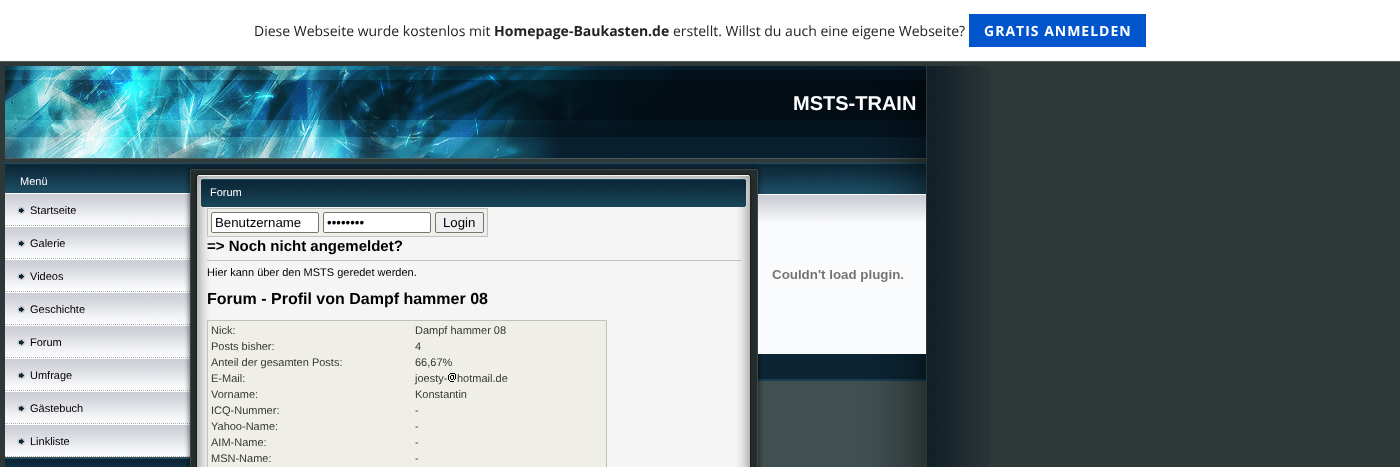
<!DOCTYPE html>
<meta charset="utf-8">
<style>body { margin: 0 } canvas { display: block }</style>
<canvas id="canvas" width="1400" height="467"></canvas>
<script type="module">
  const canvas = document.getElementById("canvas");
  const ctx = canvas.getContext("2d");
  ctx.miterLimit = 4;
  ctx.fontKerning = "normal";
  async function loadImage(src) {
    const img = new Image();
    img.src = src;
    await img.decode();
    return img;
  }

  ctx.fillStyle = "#2e3839";
  ctx.fillRect(0, 0, 1400, 467);
  ctx.fillStyle = "#ffffff";
  ctx.fillRect(0, 0, 1400, 61);
  ctx.fillStyle = "#5a5a5a";
  ctx.fillRect(0, 61, 1400, 1);
  ctx.font = "14px Open Sans";
  ctx.fillStyle = "#232323";
  ctx.fillText("Diese Webseite wurde kostenlos mit", 254, 36);
  ctx.font = "bold 14px Open Sans";
  ctx.fillText("Homepage-Baukasten.de", 494, 36);
  ctx.font = "14px Open Sans";
  ctx.fillText("erstellt. Willst du auch eine eigene Webseite?", 673, 36);
  ctx.fillStyle = "#0055cc";
  ctx.fillRect(969, 14, 177, 33);
  ctx.letterSpacing = "1px";
  ctx.font = "bold 14px Open Sans";
  ctx.fillStyle = "#ffffff";
  ctx.fillText("GRATIS ANMELDEN", 984, 36);
  ctx.drawImage(await loadImage("img1.png"), 5, 66, 921, 104);
  ctx.letterSpacing = "0px";
  ctx.font = "bold 20px Liberation Sans";
  ctx.fillText("MSTS-TRAIN", 793, 110);
  ctx.drawImage(await loadImage("img2.png"), 5, 189, 185, 4);
  ctx.drawImage(await loadImage("img3.png"), 5, 170, 185, 19);
  ctx.font = "11px Liberation Sans";
  ctx.fillText("Menü", 20, 185);
  ctx.drawImage(await loadImage("img4.png"), 5, 193, 185, 33);
  ctx.fillStyle = "#000000";
  ctx.fillText("Startseite", 30, 214);
  ctx.drawImage(await loadImage("img4.png"), 5, 226, 185, 33);
  ctx.fillText("Galerie", 30, 247);
  ctx.drawImage(await loadImage("img4.png"), 5, 259, 185, 33);
  ctx.fillText("Videos", 30, 280);
  ctx.drawImage(await loadImage("img4.png"), 5, 292, 185, 33);
  ctx.fillText("Geschichte", 30, 313);
  ctx.drawImage(await loadImage("img4.png"), 5, 325, 185, 33);
  ctx.fillText("Forum", 30, 346);
  ctx.drawImage(await loadImage("img4.png"), 5, 358, 185, 33);
  ctx.fillText("Umfrage", 30, 379);
  ctx.drawImage(await loadImage("img4.png"), 5, 391, 185, 33);
  ctx.fillText("Gästebuch", 30, 412);
  ctx.drawImage(await loadImage("img4.png"), 5, 424, 185, 33);
  ctx.fillText("Linkliste", 30, 445);
  ctx.drawImage(await loadImage("img5.png"), 5, 457, 185, 10);
  ctx.drawImage(await loadImage("img6.png"), 190, 170, 568, 38);
  ctx.fillStyle = "#ffffff";
  ctx.fillText("Forum", 210, 196);
  ctx.drawImage(await loadImage("img7.png"), 190, 208, 568, 259);
  ctx.fillStyle = "#efefe7";
  ctx.beginPath();
  ctx.rect(207.5, 208.5, 280, 28);
  ctx.fill();
  ctx.strokeStyle = "#c0c0c0";
  ctx.stroke();
  ctx.fillStyle = "#ffffff";
  ctx.beginPath();
  ctx.roundRect(211.5, 212.5, 107, 20, 1.5);
  ctx.fill();
  ctx.strokeStyle = "#767676";
  ctx.stroke();
  ctx.font = "13.25px Liberation Sans";
  ctx.fillStyle = "#000000";
  ctx.fillText("Benutzername", 215, 227);
  ctx.fillStyle = "#ffffff";
  ctx.beginPath();
  ctx.roundRect(323.5, 212.5, 107, 20, 1.5);
  ctx.fill();
  ctx.stroke();
  ctx.fillStyle = "#000000";
  ctx.fillText("••••••••", 327, 227);
  ctx.fillStyle = "#efefef";
  ctx.beginPath();
  ctx.roundRect(435.5, 212.5, 48, 20, 1.5);
  ctx.fill();
  ctx.stroke();
  ctx.fillStyle = "#000000";
  ctx.fillText("Login", 443, 227);
  ctx.font = "bold 15px Liberation Sans";
  ctx.fillText("=> Noch nicht angemeldet?", 207, 251);
  ctx.fillStyle = "#c0c0c0";
  ctx.fillRect(207, 260, 534, 1);
  ctx.font = "11px Liberation Sans";
  ctx.fillStyle = "#000000";
  ctx.fillText("Hier kann über den MSTS geredet werden.", 207, 276);
  ctx.font = "bold 16px Liberation Sans";
  ctx.fillText("Forum - Profil von Dampf hammer 08", 207, 304);
  ctx.fillStyle = "#efefe7";
  ctx.beginPath();
  ctx.rect(207.5, 320.5, 399, 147);
  ctx.fill();
  ctx.strokeStyle = "#c0c0c0";
  ctx.stroke();
  ctx.font = "11px Liberation Sans";
  ctx.fillStyle = "#373737";
  ctx.fillText("Nick:", 211, 334);
  ctx.fillText("Dampf hammer 08", 415, 334);
  ctx.fillText("Posts bisher:", 211, 350);
  ctx.fillText("4", 415, 350);
  ctx.fillText("Anteil der gesamten Posts:", 211, 366);
  ctx.fillText("66,67%", 415, 366);
  ctx.fillText("E-Mail:", 211, 382);
  ctx.fillText("joesty-", 415, 382);
  ctx.drawImage(await loadImage("img8.png"), 448, 373, 8, 9);
  ctx.fillText("hotmail.de", 457, 382);
  ctx.fillText("Vorname:", 211, 398);
  ctx.fillText("Konstantin", 415, 398);
  ctx.fillText("ICQ-Nummer:", 211, 414);
  ctx.fillText("-", 415, 414);
  ctx.fillText("Yahoo-Name:", 211, 430);
  ctx.fillText("-", 415, 430);
  ctx.fillText("AIM-Name:", 211, 446);
  ctx.fillText("-", 415, 446);
  ctx.fillText("MSN-Name:", 211, 462);
  ctx.fillText("-", 415, 462);
  ctx.drawImage(await loadImage("img9.png"), 759, 381, 167, 86);
  ctx.drawImage(await loadImage("img10.png"), 758, 170, 168, 24);
  ctx.fillStyle = "#fafbfc";
  ctx.fillRect(758, 222, 168, 132);
  ctx.drawImage(await loadImage("img11.png"), 758, 194, 168, 28);
  ctx.drawImage(await loadImage("img12.png"), 772, 270, 131, 12);
  ctx.drawImage(await loadImage("img13.png"), 758, 354, 168, 27);
  ctx.drawImage(await loadImage("img14.png"), 927, 66, 63, 401);
</script>
